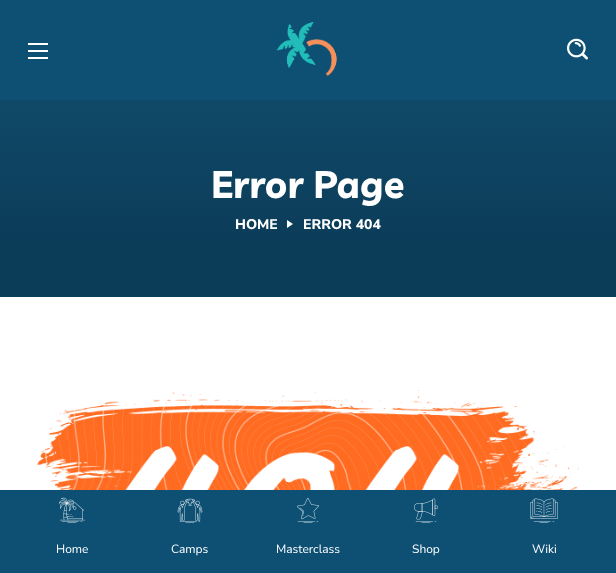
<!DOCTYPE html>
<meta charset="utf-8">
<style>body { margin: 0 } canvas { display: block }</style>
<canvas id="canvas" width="616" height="573"></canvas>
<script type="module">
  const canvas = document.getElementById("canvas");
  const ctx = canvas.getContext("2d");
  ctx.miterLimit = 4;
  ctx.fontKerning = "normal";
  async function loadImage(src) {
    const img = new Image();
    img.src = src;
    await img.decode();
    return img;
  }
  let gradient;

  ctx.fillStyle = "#ffffff";
  ctx.fillRect(0, 0, 616, 573);
  ctx.fillStyle = "#0d5074";
  ctx.fillRect(0, 0, 616, 100);
  ctx.fillStyle = "#ffffff";
  ctx.fillRect(28, 43, 20, 2);
  ctx.fillRect(28, 50, 20, 2);
  ctx.fillRect(28, 57, 20, 2);
  ctx.drawImage(await loadImage("img1.png"), 276, 22, 61, 54);
  ctx.drawImage(await loadImage("img2.png"), 567, 38, 21, 22);
  gradient = ctx.createLinearGradient(308, 297, 308, 100);
  gradient.addColorStop(0, "#0b3c58");
  gradient.addColorStop(0.24, "#0b3c58");
  gradient.addColorStop(1, "#104968");
  ctx.fillStyle = gradient;
  ctx.fillRect(0, 100, 616, 197);
  ctx.font = "bold 38px Livvic";
  ctx.fillStyle = "#ffffff";
  ctx.fillText("Error Page", 211, 198);
  ctx.font = "800 14px Nunito Sans";
  ctx.fillText("HOME", 235, 229);
  ctx.beginPath();
  ctx.moveTo(287, 228);
  ctx.lineTo(287, 220);
  ctx.lineTo(293, 224);
  ctx.closePath();
  ctx.fill();
  ctx.fillText("ERROR 404", 303, 229);
  ctx.drawImage(await loadImage("img3.png"), 37, 390, 542, 100);
  ctx.fillStyle = "#0d5074";
  ctx.fillRect(0, 490, 616, 83);
  ctx.drawImage(await loadImage("img4.png"), 58, 497, 27, 26);
  ctx.font = "12px Nunito Sans";
  ctx.fillStyle = "#ffffff";
  ctx.fillText("Home", 56, 553);
  ctx.drawImage(await loadImage("img5.png"), 177, 498, 26, 25);
  ctx.fillText("Camps", 171, 553);
  ctx.drawImage(await loadImage("img6.png"), 297, 497, 22, 26);
  ctx.fillText("Masterclass", 276, 553);
  ctx.drawImage(await loadImage("img7.png"), 414, 498, 24, 25);
  ctx.fillText("Shop", 412, 553);
  ctx.drawImage(await loadImage("img8.png"), 530, 498, 28, 25);
  ctx.fillText("Wiki", 532, 553);
</script>
